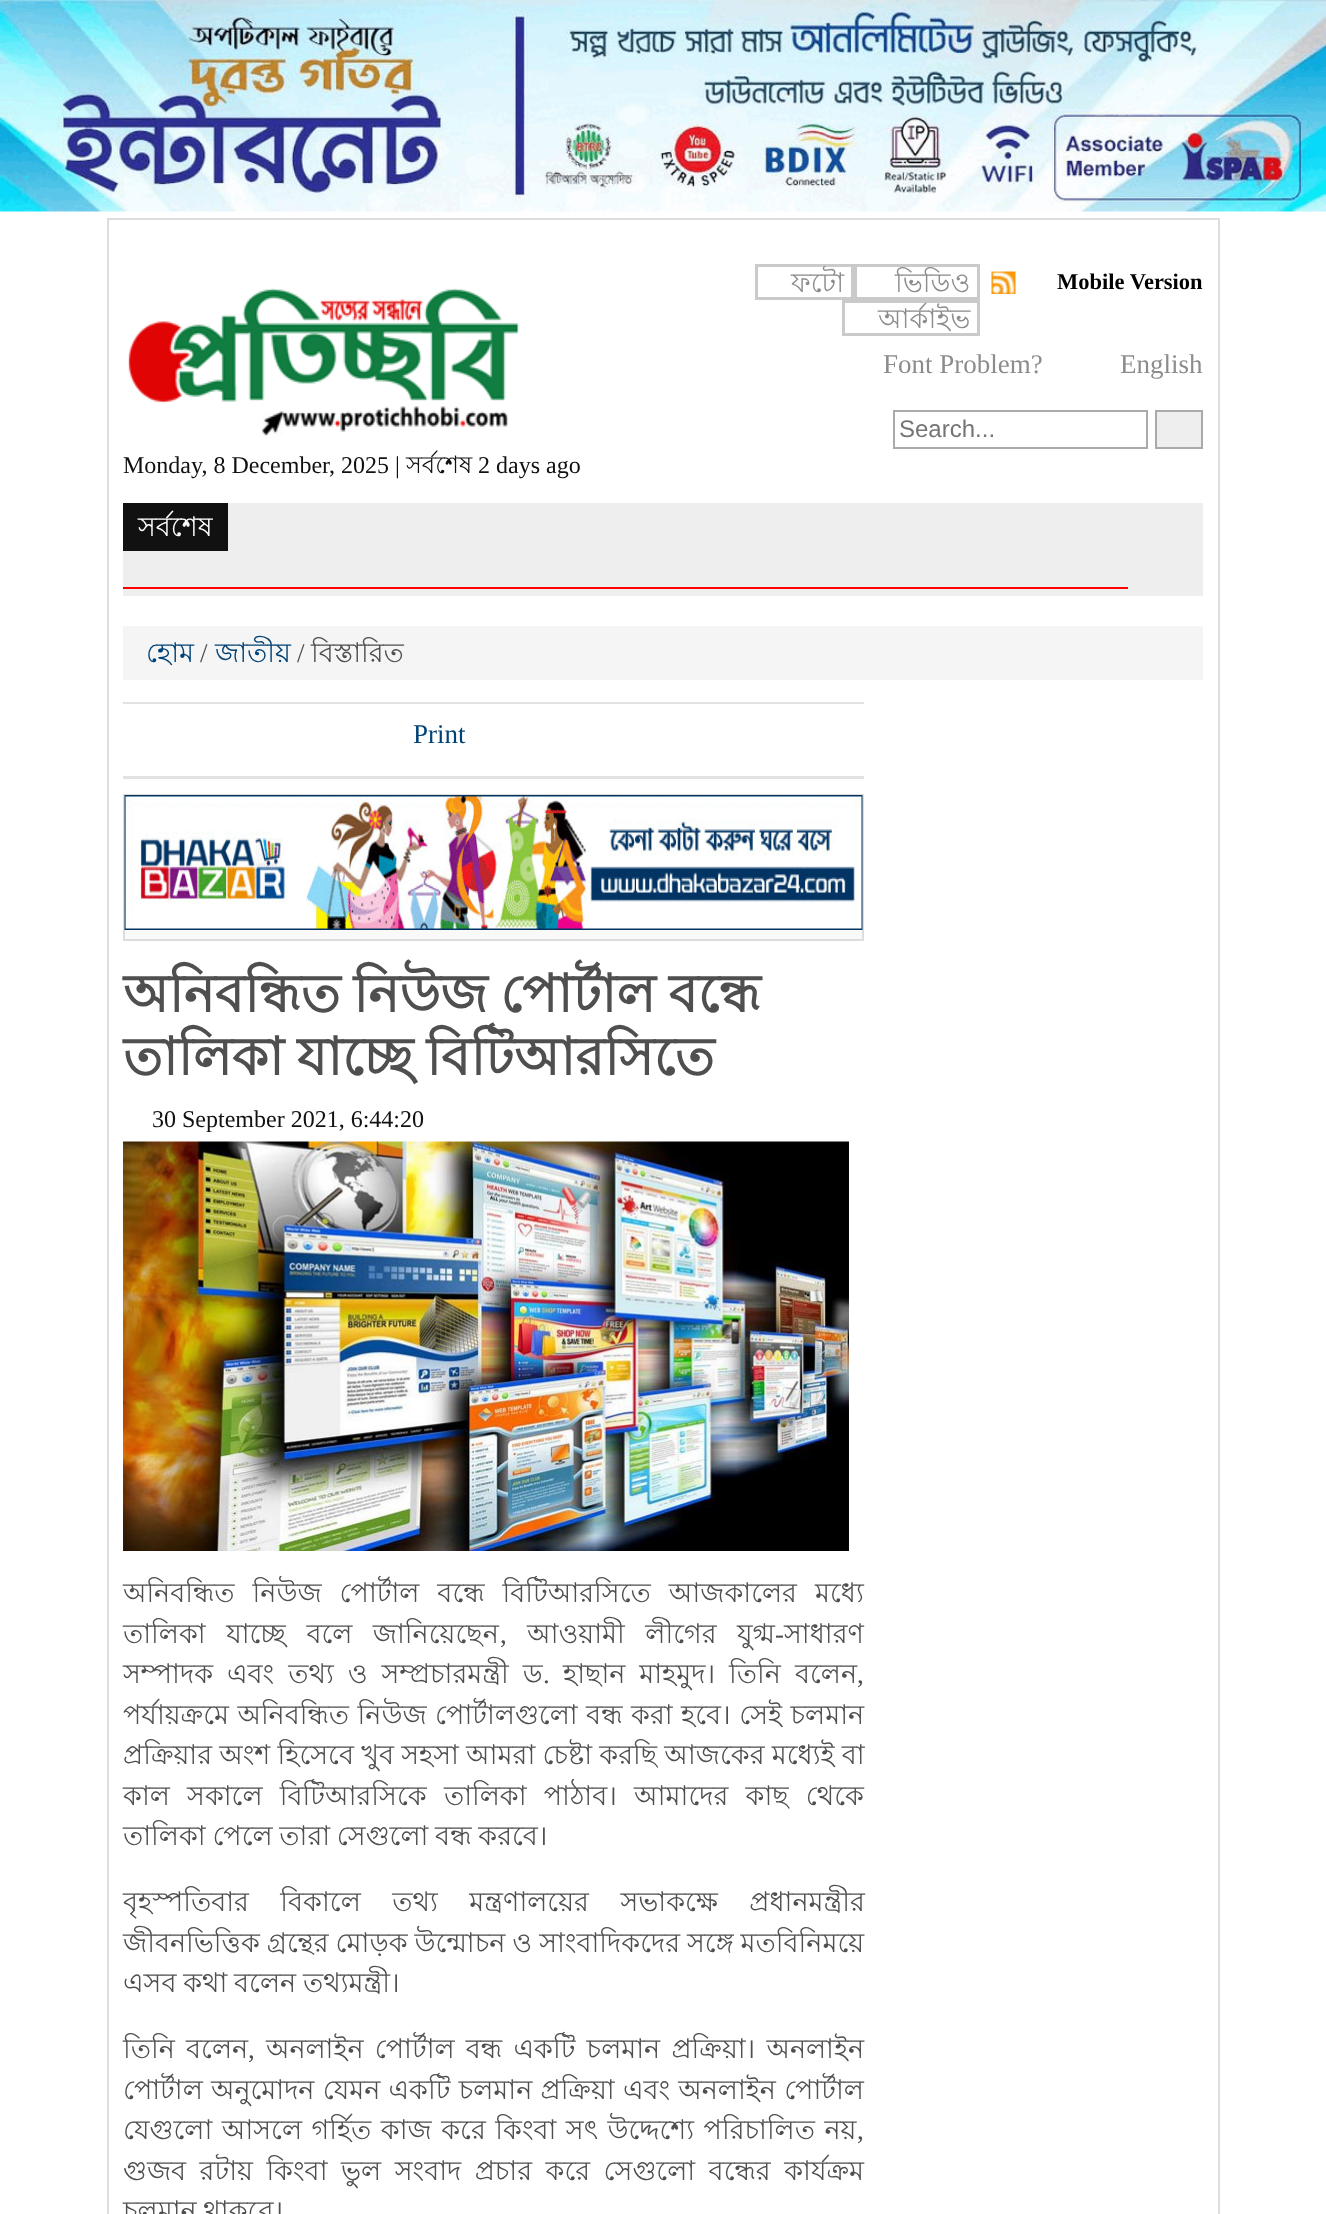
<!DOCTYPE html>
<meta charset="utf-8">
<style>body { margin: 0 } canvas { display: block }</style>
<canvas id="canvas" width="1326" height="2214"></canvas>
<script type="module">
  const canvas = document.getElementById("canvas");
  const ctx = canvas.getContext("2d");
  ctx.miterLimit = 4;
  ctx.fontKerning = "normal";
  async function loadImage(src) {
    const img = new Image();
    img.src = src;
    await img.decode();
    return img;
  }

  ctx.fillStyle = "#ffffff";
  ctx.fillRect(0, 0, 1326, 2214);
  ctx.drawImage(await loadImage("img1.png"), 0, 0, 1326, 212);
  ctx.strokeStyle = "#dddddd";
  ctx.lineWidth = 2;
  ctx.strokeRect(108, 219, 1111, 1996);
  ctx.strokeStyle = "#cacaca";
  ctx.lineWidth = 3;
  ctx.strokeRect(756.5, 265.5, 96, 33);
  ctx.font = "27px Lohit Bengali";
  ctx.fillStyle = "#8c8c8c";
  ctx.fillText("ফটো", 791, 292);
  ctx.strokeRect(855.5, 265.5, 123, 33);
  ctx.fillText("ভিডিও", 895, 292);
  ctx.drawImage(await loadImage("img2.png"), 991, 271, 25, 23);
  ctx.font = "bold 22.5px Liberation Serif";
  ctx.fillStyle = "#000000";
  ctx.fillText("Mobile Version", 1057, 289);
  ctx.strokeRect(843.5, 301.5, 135, 33);
  ctx.font = "27px Lohit Bengali";
  ctx.fillStyle = "#8c8c8c";
  ctx.fillText("আর্কাইভ", 878, 328);
  ctx.font = "27px Liberation Serif";
  ctx.fillText("Font Problem?", 883, 373);
  ctx.fillText("English", 1120, 373);
  ctx.strokeStyle = "#aaaaaa";
  ctx.lineWidth = 2;
  ctx.strokeRect(894, 411, 253, 37);
  ctx.font = "24px Liberation Sans";
  ctx.fillStyle = "#757575";
  ctx.fillText("Search...", 899, 437);
  ctx.fillStyle = "#eeeeee";
  ctx.beginPath();
  ctx.rect(1156, 411, 46, 37);
  ctx.fill();
  ctx.stroke();
  ctx.drawImage(await loadImage("img3.png"), 128, 288, 392, 148);
  ctx.font = "24px Liberation Serif";
  ctx.fillStyle = "#111111";
  ctx.fillText("Monday, 8 December, 2025 |", 123, 473);
  ctx.font = "24px Lohit Bengali";
  ctx.fillText("সর্বশেষ", 406, 473);
  ctx.font = "24px Liberation Serif";
  ctx.fillText("2 days ago", 478, 473);
  ctx.fillStyle = "#eeeeee";
  ctx.fillRect(123, 503, 1080, 93);
  ctx.fillStyle = "#111111";
  ctx.fillRect(123, 503, 105, 48);
  ctx.font = "27px Lohit Bengali";
  ctx.fillStyle = "#ffffff";
  ctx.fillText("সর্বশেষ", 138, 536);
  ctx.fillStyle = "#ff0000";
  ctx.fillRect(123, 587, 1005, 2);
  ctx.fillStyle = "#f5f5f5";
  ctx.fillRect(123, 626, 1080, 54);
  ctx.fillStyle = "#004276";
  ctx.fillText("হোম", 146, 662);
  ctx.font = "27px Liberation Serif";
  ctx.fillStyle = "#4f4f4f";
  ctx.fillText("/", 200, 662);
  ctx.font = "27px Lohit Bengali";
  ctx.fillStyle = "#004276";
  ctx.fillText("জাতীয়", 215, 662);
  ctx.font = "27px Liberation Serif";
  ctx.fillStyle = "#4f4f4f";
  ctx.fillText("/", 297, 662);
  ctx.font = "27px Lohit Bengali";
  ctx.fillText("বিস্তারিত", 311, 662);
  ctx.fillStyle = "#e2e2e2";
  ctx.fillRect(123, 702, 741, 2);
  ctx.fillRect(123, 776, 741, 3);
  ctx.font = "27px Liberation Serif";
  ctx.fillStyle = "#004276";
  ctx.fillText("Print", 413, 743);
  ctx.fillStyle = "#f9f9f9";
  ctx.fillRect(125, 930, 737, 9);
  ctx.strokeStyle = "#dddddd";
  ctx.strokeRect(124, 795, 739, 145);
  ctx.drawImage(await loadImage("img4.png"), 124, 795, 739, 135);
  ctx.wordSpacing = "-1.5px";
  ctx.font = "bold 52.5px Lohit Bengali";
  ctx.fillStyle = "#4f4f4f";
  ctx.fillText("অনিবন্ধিত নিউজ পোর্টাল বন্ধে", 123, 1012);
  ctx.fillText("তালিকা যাচ্ছে বিটিআরসিতে", 123, 1075);
  ctx.wordSpacing = "0px";
  ctx.font = "24px Liberation Serif";
  ctx.fillStyle = "#111111";
  ctx.fillText("30 September 2021, 6:44:20", 152, 1127);
  ctx.drawImage(await loadImage("img5.png"), 123, 1141, 726, 410);
  ctx.wordSpacing = "10.5px";
  ctx.font = "27px Lohit Bengali";
  ctx.fillStyle = "#4f4f4f";
  ctx.fillText("অনিবন্ধিত নিউজ পোর্টাল বন্ধে বিটিআরসিতে আজকালের মধ্যে", 123, 1602);
  ctx.wordSpacing = "13px";
  ctx.fillText("তালিকা যাচ্ছে বলে জানিয়েছেন", 123, 1643);
  ctx.fillText("আওয়ামী লীগের যুগ্ম", 527, 1643);
  ctx.wordSpacing = "0px";
  ctx.font = "27px Liberation Serif";
  ctx.fillText("-", 775, 1643);
  ctx.font = "27px Lohit Bengali";
  ctx.fillText("সাধারণ", 784, 1643);
  ctx.font = "27px Liberation Serif";
  ctx.fillText(",", 500, 1643);
  ctx.wordSpacing = "6.5px";
  ctx.font = "27px Lohit Bengali";
  ctx.fillText("সম্পাদক এবং তথ্য ও সম্প্রচারমন্ত্রী ড", 123, 1683);
  ctx.wordSpacing = "0px";
  ctx.font = "27px Liberation Serif";
  ctx.fillText(".", 543, 1683);
  ctx.wordSpacing = "6.5px";
  ctx.font = "27px Lohit Bengali";
  ctx.fillText("হাছান মাহমুদ। তিনি বলেন", 563, 1683);
  ctx.wordSpacing = "0px";
  ctx.font = "27px Liberation Serif";
  ctx.fillText(",", 857, 1683);
  ctx.wordSpacing = "1px";
  ctx.font = "27px Lohit Bengali";
  ctx.fillText("পর্যায়ক্রমে অনিবন্ধিত নিউজ পোর্টালগুলো বন্ধ করা হবে। সেই চলমান", 123, 1724);
  ctx.wordSpacing = "-0.25px";
  ctx.fillText("প্রক্রিয়ার অংশ হিসেবে খুব সহসা আমরা চেষ্টা করছি আজকের মধ্যেই বা", 123, 1764);
  ctx.wordSpacing = "9.75px";
  ctx.fillText("কাল সকালে বিটিআরসিকে তালিকা পাঠাব। আমাদের কাছ থেকে", 123, 1805);
  ctx.wordSpacing = "-0.75px";
  ctx.fillText("তালিকা পেলে তারা সেগুলো বন্ধ করবে।", 123, 1845);
  ctx.wordSpacing = "24px";
  ctx.fillText("বৃহস্পতিবার বিকালে তথ্য মন্ত্রণালয়ের সভাকক্ষে প্রধানমন্ত্রীর", 123, 1911);
  ctx.wordSpacing = "-0.5px";
  ctx.fillText("জীবনভিত্তিক গ্রন্থের মোড়ক উন্মোচন ও সাংবাদিকদের সঙ্গে মতবিনিময়ে", 123, 1952);
  ctx.wordSpacing = "-0.75px";
  ctx.fillText("এসব কথা বলেন তথ্যমন্ত্রী।", 123, 1992);
  ctx.wordSpacing = "3.75px";
  ctx.fillText("তিনি বলেন", 123, 2058);
  ctx.wordSpacing = "0px";
  ctx.font = "27px Liberation Serif";
  ctx.fillText(",", 248, 2058);
  ctx.wordSpacing = "3.75px";
  ctx.font = "27px Lohit Bengali";
  ctx.fillText("অনলাইন পোর্টাল বন্ধ একটি চলমান প্রক্রিয়া। অনলাইন", 266, 2058);
  ctx.wordSpacing = "0.75px";
  ctx.fillText("পোর্টাল অনুমোদন যেমন একটি চলমান প্রক্রিয়া এবং অনলাইন পোর্টাল", 123, 2099);
  ctx.wordSpacing = "2px";
  ctx.fillText("যেগুলো আসলে গর্হিত কাজ করে কিংবা সৎ উদ্দেশ্যে পরিচালিত নয়", 123, 2139);
  ctx.wordSpacing = "0px";
  ctx.font = "27px Liberation Serif";
  ctx.fillText(",", 857, 2139);
  ctx.wordSpacing = "6px";
  ctx.font = "27px Lohit Bengali";
  ctx.fillText("গুজব রটায় কিংবা ভুল সংবাদ প্রচার করে সেগুলো বন্ধের কার্যক্রম", 123, 2180);
  ctx.wordSpacing = "-0.75px";
  ctx.fillText("চলমান থাকবে।", 123, 2220);
</script>
